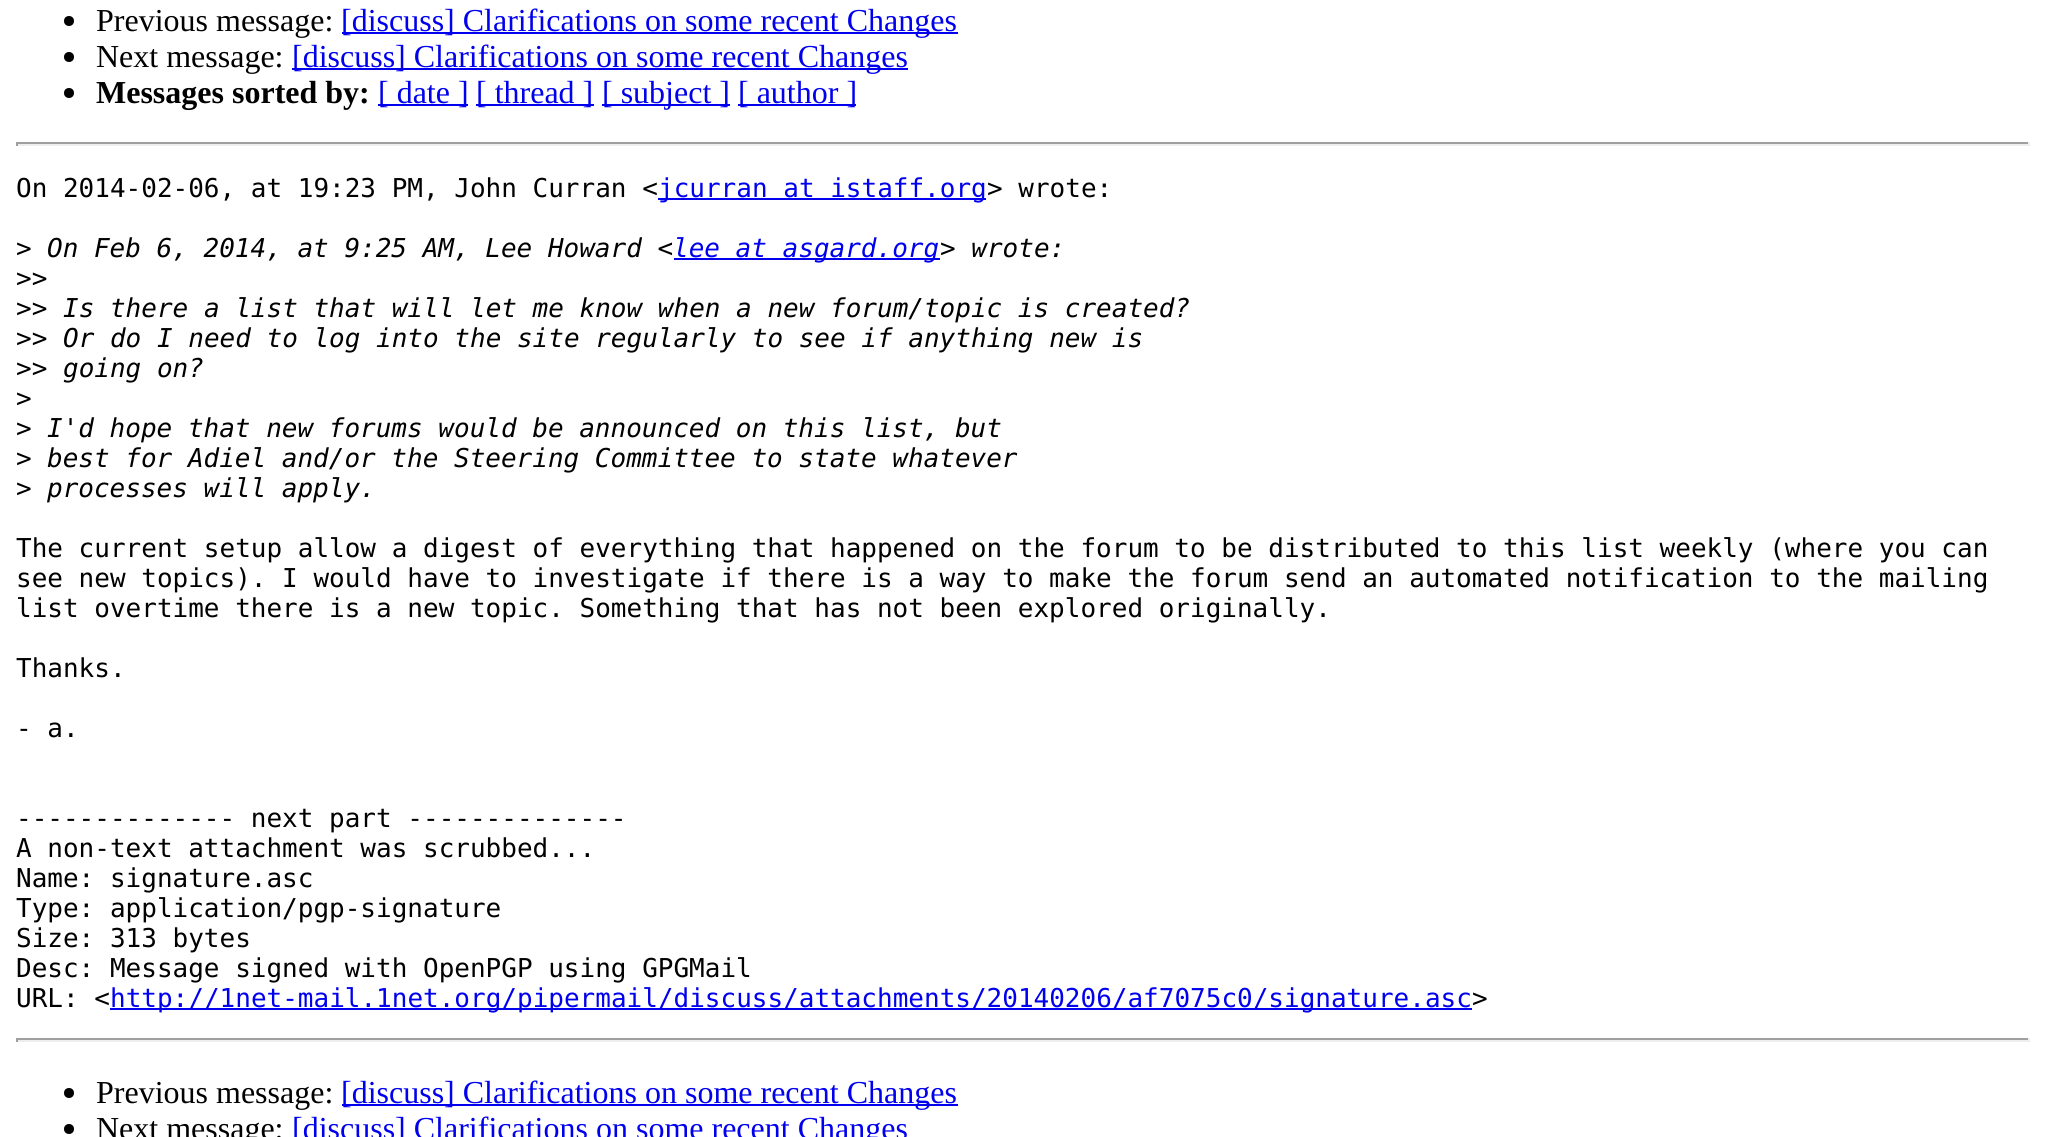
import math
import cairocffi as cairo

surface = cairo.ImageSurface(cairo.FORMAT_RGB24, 2046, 1137)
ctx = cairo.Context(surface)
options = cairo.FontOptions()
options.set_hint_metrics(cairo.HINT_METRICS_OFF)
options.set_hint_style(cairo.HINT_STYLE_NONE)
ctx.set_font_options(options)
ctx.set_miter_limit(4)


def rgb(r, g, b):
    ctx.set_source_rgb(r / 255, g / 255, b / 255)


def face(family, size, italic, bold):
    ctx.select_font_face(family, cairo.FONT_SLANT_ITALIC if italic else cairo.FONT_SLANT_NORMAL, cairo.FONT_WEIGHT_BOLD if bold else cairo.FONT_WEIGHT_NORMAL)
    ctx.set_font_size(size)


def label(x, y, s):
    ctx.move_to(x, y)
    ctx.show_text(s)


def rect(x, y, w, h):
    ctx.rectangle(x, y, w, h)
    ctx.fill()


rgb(255, 255, 255)
ctx.paint()
rgb(0, 0, 0)
ctx.arc(69, 21, 5, 0, 2 * math.pi)
ctx.fill()
face('Liberation Serif', 32, 0, 0)
label(96, 31, 'Previous message:')
rgb(0, 0, 238)
rect(342, 32, 616, 2)
label(341, 31, '[discuss] Clarifications on some recent Changes')
rgb(0, 0, 0)
ctx.new_path()
ctx.arc(69, 57, 5, 0, 2 * math.pi)
ctx.fill()
label(96, 67, 'Next message:')
rgb(0, 0, 238)
rect(292, 68, 616, 2)
label(292, 67, '[discuss] Clarifications on some recent Changes')
rgb(0, 0, 0)
ctx.new_path()
ctx.arc(69, 93, 5, 0, 2 * math.pi)
ctx.fill()
face('Liberation Serif', 32, 0, 1)
label(96, 103, 'Messages sorted by:')
rgb(0, 0, 238)
rect(378, 104, 90, 2)
face('Liberation Serif', 32, 0, 0)
label(378, 103, '[ date ]')
rect(476, 104, 118, 2)
label(476, 103, '[ thread ]')
rect(602, 104, 128, 2)
label(602, 103, '[ subject ]')
rect(738, 104, 118, 2)
label(738, 103, '[ author ]')
rgb(159, 159, 159)
rect(16, 142, 2014, 2)
rgb(238, 238, 238)
rect(2028, 142, 2, 4)
rect(16, 144, 2014, 2)
rgb(159, 159, 159)
rect(16, 142, 2, 4)
face('DejaVu Sans Mono', 26, 0, 0)
rgb(0, 0, 0)
label(16, 197, 'On 2014-02-06, at 19:23 PM, John Curran <')
rgb(0, 0, 238)
rect(658, 198, 328, 2)
label(658, 197, 'jcurran at istaff.org')
rgb(0, 0, 0)
label(987, 197, '> wrote:')
label(16, 257, '>')
face('DejaVu Sans Mono', 26, 1, 0)
label(47, 257, 'On Feb 6, 2014, at 9:25 AM, Lee Howard <')
rgb(0, 0, 238)
rect(674, 258, 266, 2)
label(673, 257, 'lee at asgard.org')
rgb(0, 0, 0)
label(940, 257, '> wrote:')
face('DejaVu Sans Mono', 26, 0, 0)
label(16, 287, '>>')
label(16, 317, '>>')
face('DejaVu Sans Mono', 26, 1, 0)
label(63, 317, 'Is there a list that will let me know when a new forum/topic is created?')
face('DejaVu Sans Mono', 26, 0, 0)
label(16, 347, '>>')
face('DejaVu Sans Mono', 26, 1, 0)
label(63, 347, 'Or do I need to log into the site regularly to see if anything new is')
face('DejaVu Sans Mono', 26, 0, 0)
label(16, 377, '>>')
face('DejaVu Sans Mono', 26, 1, 0)
label(63, 377, 'going on?')
face('DejaVu Sans Mono', 26, 0, 0)
label(16, 407, '>')
label(16, 437, '>')
face('DejaVu Sans Mono', 26, 1, 0)
label(47, 437, 'I\'d hope that new forums would be announced on this list, but')
face('DejaVu Sans Mono', 26, 0, 0)
label(16, 467, '>')
face('DejaVu Sans Mono', 26, 1, 0)
label(47, 467, 'best for Adiel and/or the Steering Committee to state whatever')
face('DejaVu Sans Mono', 26, 0, 0)
label(16, 497, '>')
face('DejaVu Sans Mono', 26, 1, 0)
label(47, 497, 'processes will apply.')
face('DejaVu Sans Mono', 26, 0, 0)
label(16, 557, 'The current setup allow a digest of everything that happened on the forum to be distributed to this list weekly (where you can')
label(16, 587, 'see new topics). I would have to investigate if there is a way to make the forum send an automated notification to the mailing')
label(16, 617, 'list overtime there is a new topic. Something that has not been explored originally.')
label(16, 677, 'Thanks.')
label(16, 737, '- a.')
label(16, 827, '-------------- next part --------------')
label(16, 857, 'A non-text attachment was scrubbed...')
label(16, 887, 'Name: signature.asc')
label(16, 917, 'Type: application/pgp-signature')
label(16, 947, 'Size: 313 bytes')
label(16, 977, 'Desc: Message signed with OpenPGP using GPGMail')
label(16, 1007, 'URL: <')
rgb(0, 0, 238)
rect(110, 1008, 1362, 2)
label(110, 1007, 'http://1net-mail.1net.org/pipermail/discuss/attachments/20140206/af7075c0/signature.asc')
rgb(0, 0, 0)
label(1472, 1007, '>')
rgb(159, 159, 159)
rect(16, 1038, 2014, 2)
rgb(238, 238, 238)
rect(2028, 1038, 2, 4)
rect(16, 1040, 2014, 2)
rgb(159, 159, 159)
rect(16, 1038, 2, 4)
rgb(0, 0, 0)
ctx.new_path()
ctx.arc(69, 1093, 5, 0, 2 * math.pi)
ctx.fill()
face('Liberation Serif', 32, 0, 0)
label(96, 1103, 'Previous message:')
rgb(0, 0, 238)
rect(342, 1104, 616, 2)
label(341, 1103, '[discuss] Clarifications on some recent Changes')
rgb(0, 0, 0)
ctx.new_path()
ctx.arc(69, 1129, 5, 0, 2 * math.pi)
ctx.fill()
label(96, 1139, 'Next message:')
rgb(0, 0, 238)
label(292, 1139, '[discuss] Clarifications on some recent Changes')
surface.write_to_png('render.png')
